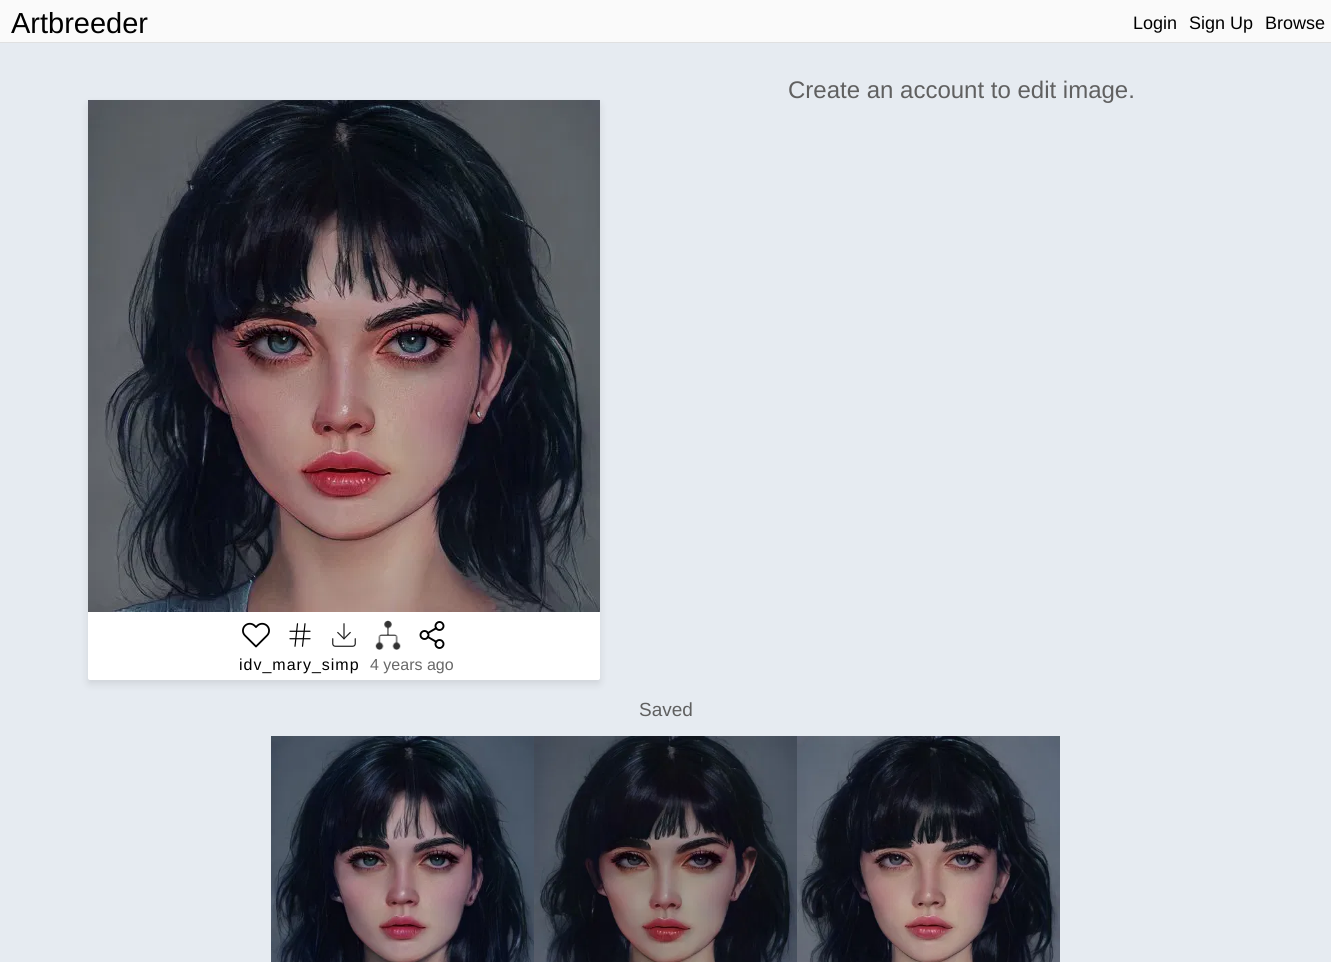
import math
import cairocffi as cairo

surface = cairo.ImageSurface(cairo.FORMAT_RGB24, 1331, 962)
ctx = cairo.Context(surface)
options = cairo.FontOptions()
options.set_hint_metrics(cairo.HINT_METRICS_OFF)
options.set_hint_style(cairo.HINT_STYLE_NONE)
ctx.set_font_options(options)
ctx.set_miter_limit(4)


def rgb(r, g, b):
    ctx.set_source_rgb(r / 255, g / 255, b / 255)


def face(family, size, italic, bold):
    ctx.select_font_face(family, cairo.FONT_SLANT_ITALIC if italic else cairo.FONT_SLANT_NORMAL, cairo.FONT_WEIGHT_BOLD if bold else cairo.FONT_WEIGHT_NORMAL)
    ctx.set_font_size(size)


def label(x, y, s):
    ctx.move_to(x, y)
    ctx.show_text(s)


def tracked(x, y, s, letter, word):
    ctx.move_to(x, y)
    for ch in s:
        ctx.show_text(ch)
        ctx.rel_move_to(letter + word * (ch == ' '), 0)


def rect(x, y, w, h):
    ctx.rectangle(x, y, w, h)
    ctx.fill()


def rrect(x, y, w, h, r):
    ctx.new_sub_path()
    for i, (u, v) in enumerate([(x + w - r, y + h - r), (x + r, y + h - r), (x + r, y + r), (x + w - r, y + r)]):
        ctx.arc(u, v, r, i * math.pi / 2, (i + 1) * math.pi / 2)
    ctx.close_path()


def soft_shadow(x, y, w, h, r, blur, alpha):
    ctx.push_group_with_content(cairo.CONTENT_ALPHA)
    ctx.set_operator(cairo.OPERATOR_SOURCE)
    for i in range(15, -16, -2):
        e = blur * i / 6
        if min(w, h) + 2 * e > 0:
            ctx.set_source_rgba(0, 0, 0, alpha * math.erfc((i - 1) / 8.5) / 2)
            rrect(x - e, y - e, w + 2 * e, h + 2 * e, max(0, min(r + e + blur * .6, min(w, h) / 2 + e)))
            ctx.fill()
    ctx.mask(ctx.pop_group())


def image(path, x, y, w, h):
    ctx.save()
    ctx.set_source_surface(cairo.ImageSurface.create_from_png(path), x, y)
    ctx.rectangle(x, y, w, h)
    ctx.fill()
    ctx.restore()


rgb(230, 235, 241)
ctx.paint()
rgb(250, 250, 250)
rect(0, 0, 1331, 42)
rgb(224, 224, 224)
rect(0, 42, 1331, 1)
face('Liberation Sans', 29, 0, 0)
rgb(0, 0, 0)
label(11, 33, 'Artbreeder')
face('Liberation Sans', 18, 0, 0)
label(1133, 29, 'Login')
label(1189, 29, 'Sign Up')
label(1265, 29, 'Browse')
face('Liberation Sans', 24, 0, 0)
rgb(96, 96, 96)
label(788, 98, 'Create an account to edit image.')
rgb(0, 0, 0)
soft_shadow(88, 104, 512, 580, 2, 4, 0.1)
rgb(255, 255, 255)
rrect(88, 100, 512, 580, 2)
ctx.fill()
image('image0.png', 88, 100, 512, 512)
image('image1.png', 242, 622, 28, 26)
image('image2.png', 289, 623, 22, 24)
image('image3.png', 332, 623, 24, 24)
image('image4.png', 375, 620, 26, 30)
image('image5.png', 419, 621, 26, 28)
face('Liberation Sans', 16, 0, 0)
rgb(0, 0, 0)
tracked(239, 670, 'idv_mary_simp', 1, 0)
rgb(104, 104, 104)
label(370, 670, '4 years ago')
face('Liberation Sans', 19, 0, 0)
rgb(96, 96, 96)
label(639, 716, 'Saved')
image('image6.png', 271, 736, 263, 226)
image('image7.png', 534, 736, 263, 226)
image('image8.png', 797, 736, 263, 226)
surface.write_to_png('render.png')
